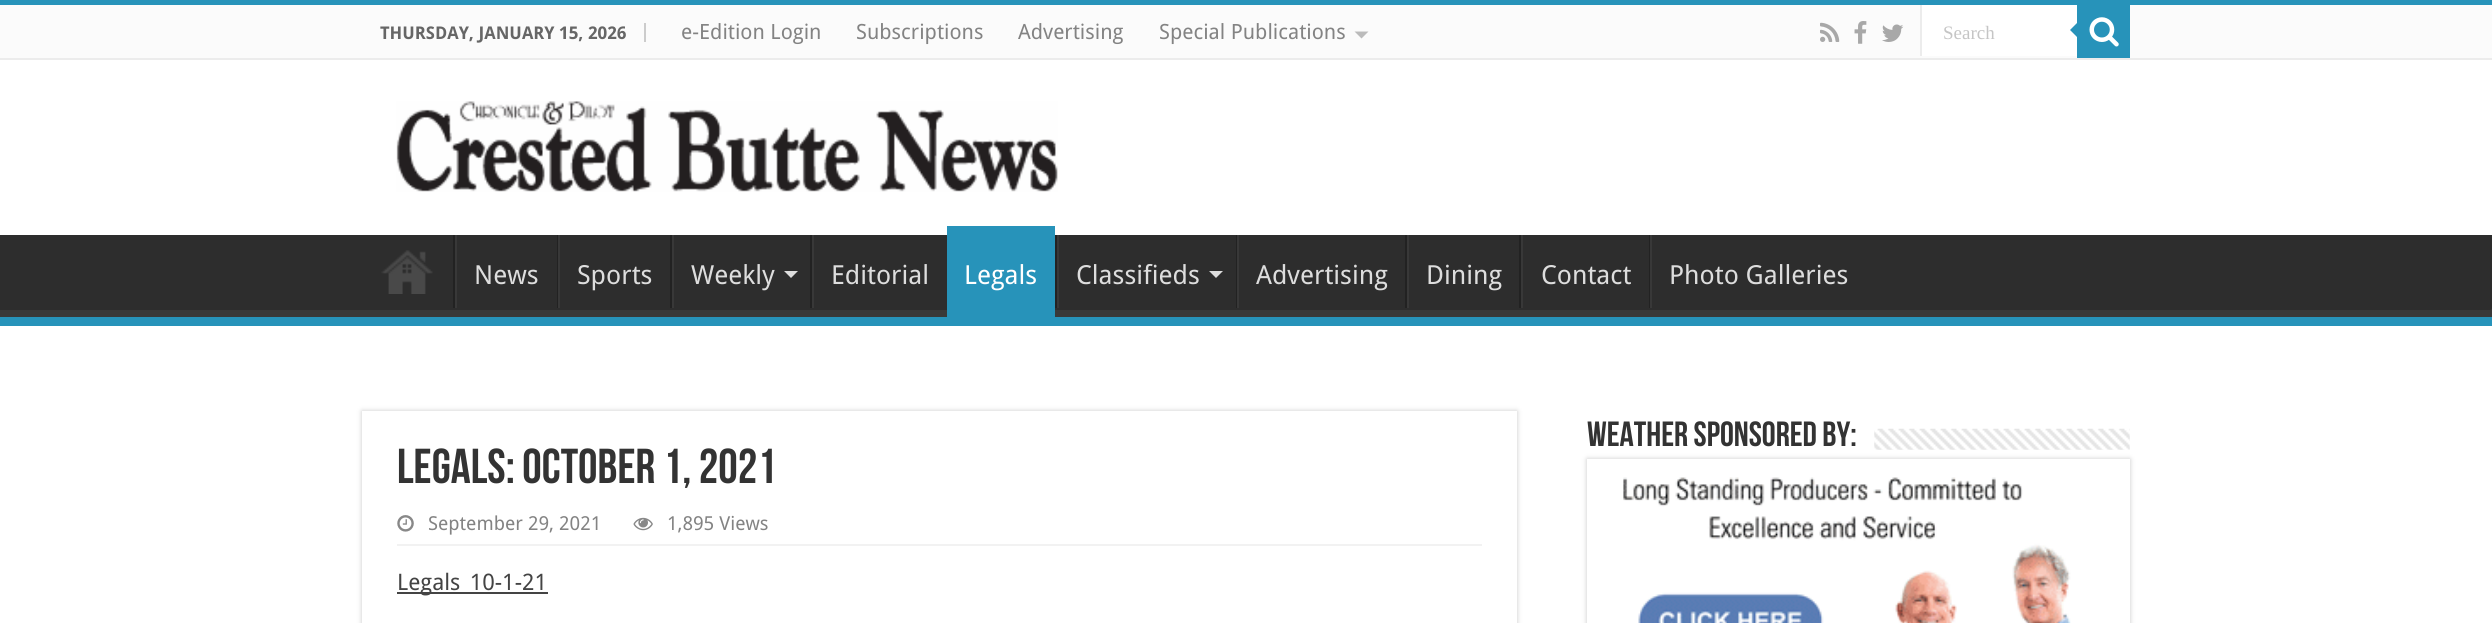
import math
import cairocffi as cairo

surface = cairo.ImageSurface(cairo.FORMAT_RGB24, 2492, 623)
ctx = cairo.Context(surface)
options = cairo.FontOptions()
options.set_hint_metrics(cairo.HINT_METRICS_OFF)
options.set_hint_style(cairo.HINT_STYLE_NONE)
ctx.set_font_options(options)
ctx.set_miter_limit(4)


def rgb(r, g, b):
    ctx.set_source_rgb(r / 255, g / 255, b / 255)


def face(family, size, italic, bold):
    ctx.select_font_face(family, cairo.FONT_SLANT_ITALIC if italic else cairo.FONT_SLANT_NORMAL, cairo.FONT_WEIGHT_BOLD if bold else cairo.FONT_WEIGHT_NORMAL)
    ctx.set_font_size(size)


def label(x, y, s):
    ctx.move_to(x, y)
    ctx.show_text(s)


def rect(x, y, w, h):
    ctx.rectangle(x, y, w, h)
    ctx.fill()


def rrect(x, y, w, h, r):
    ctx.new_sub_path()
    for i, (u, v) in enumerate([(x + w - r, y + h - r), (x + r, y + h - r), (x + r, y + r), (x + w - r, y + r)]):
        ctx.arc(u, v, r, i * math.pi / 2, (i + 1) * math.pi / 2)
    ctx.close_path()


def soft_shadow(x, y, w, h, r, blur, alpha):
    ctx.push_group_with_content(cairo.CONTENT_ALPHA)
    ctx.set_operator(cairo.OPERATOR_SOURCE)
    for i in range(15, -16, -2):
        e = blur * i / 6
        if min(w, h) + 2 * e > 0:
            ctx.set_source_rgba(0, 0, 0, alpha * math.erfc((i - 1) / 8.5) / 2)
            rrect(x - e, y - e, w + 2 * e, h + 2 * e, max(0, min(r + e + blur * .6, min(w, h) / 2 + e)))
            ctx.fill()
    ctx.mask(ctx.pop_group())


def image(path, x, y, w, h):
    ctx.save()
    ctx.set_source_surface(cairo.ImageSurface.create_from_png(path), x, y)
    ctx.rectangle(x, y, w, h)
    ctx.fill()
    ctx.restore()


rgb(255, 255, 255)
ctx.paint()
rgb(39, 147, 186)
rect(0, 0, 2492, 5)
rgb(251, 251, 251)
rect(0, 5, 2492, 53)
rgb(236, 236, 236)
rect(0, 58, 2492, 2)
rgb(204, 204, 204)
rect(644, 23, 2, 19)
face('Droid Sans', 17.5, 0, 1)
rgb(102, 102, 102)
label(380, 39, 'THURSDAY, JANUARY 15, 2026')
face('Droid Sans', 21, 0, 0)
rgb(131, 131, 131)
label(681, 39, 'e-Edition Login')
label(856, 39, 'Subscriptions')
label(1018, 39, 'Advertising')
label(1159, 39, 'Special Publications')
rgb(187, 187, 187)
ctx.new_path()
ctx.move_to(1354.5, 31.5)
ctx.line_to(1368.5, 31.5)
ctx.line_to(1361.5, 38.5)
ctx.close_path()
ctx.fill()
image('image0.png', 1820, 22, 20, 20)
image('image1.png', 1854, 21, 13, 23)
image('image2.png', 1882, 24, 22, 18)
rgb(255, 255, 255)
rect(1922, 5, 155, 51)
rgb(236, 236, 236)
rect(1920, 5, 2, 51)
face('Liberation Serif', 19, 0, 0)
rgb(197, 197, 197)
label(1943, 39, 'Search')
rgb(39, 147, 186)
rect(2077, 5, 53, 53)
image('image3.png', 2089, 17, 30, 30)
ctx.new_path()
ctx.move_to(2077, 23)
ctx.line_to(2077, 37)
ctx.line_to(2070, 30)
ctx.close_path()
ctx.fill()
image('image4.png', 396, 101, 662, 91)
rgb(45, 45, 45)
rect(0, 235, 2492, 75)
ctx.save()
ctx.rectangle(0, 235, 2492, 82)
ctx.clip()
rgb(57, 57, 57)
ctx.set_fill_rule(cairo.FILL_RULE_EVEN_ODD)
ctx.new_path()
ctx.move_to(-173, 61)
ctx.line_to(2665, 61)
ctx.line_to(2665, 490)
ctx.line_to(-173, 490)
ctx.close_path()
ctx.move_to(-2, 224)
ctx.line_to(2490, 224)
ctx.curve_to(2491, 224, 2492, 225, 2492, 226)
ctx.line_to(2492, 308)
ctx.curve_to(2492, 309, 2491, 310, 2490, 310)
ctx.line_to(-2, 310)
ctx.curve_to(-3, 310, -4, 309, -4, 308)
ctx.line_to(-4, 226)
ctx.curve_to(-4, 225, -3, 224, -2, 224)
ctx.close_path()
ctx.fill()
ctx.restore()
rgb(39, 147, 186)
rect(0, 317, 2492, 9)
image('image5.png', 381, 250, 52, 44)
rgb(34, 34, 34)
rect(453, 235, 2, 73)
rgb(56, 56, 56)
rect(455, 235, 2, 73)
face('Droid Sans', 26.25, 0, 0)
rgb(221, 221, 221)
label(474, 284, 'News')
rgb(34, 34, 34)
rect(557, 235, 1, 73)
rgb(56, 56, 56)
rect(558, 235, 2, 73)
rgb(221, 221, 221)
label(577, 284, 'Sports')
rgb(34, 34, 34)
rect(670, 235, 2, 73)
rgb(56, 56, 56)
rect(672, 235, 2, 73)
rgb(221, 221, 221)
label(691, 284, 'Weekly')
ctx.new_path()
ctx.move_to(784, 271)
ctx.line_to(798, 271)
ctx.line_to(791, 278)
ctx.close_path()
ctx.fill()
rgb(34, 34, 34)
rect(810, 235, 2, 73)
rgb(56, 56, 56)
rect(812, 235, 2, 73)
rgb(221, 221, 221)
label(831, 284, 'Editorial')
rgb(39, 147, 186)
rect(947, 226, 108, 91)
rgb(255, 255, 255)
label(964, 284, 'Legals')
rgb(34, 34, 34)
rect(1055, 235, 2, 73)
rgb(56, 56, 56)
rect(1057, 235, 2, 73)
rgb(221, 221, 221)
label(1076, 284, 'Classifieds')
ctx.new_path()
ctx.move_to(1209, 271)
ctx.line_to(1223, 271)
ctx.line_to(1216, 278)
ctx.close_path()
ctx.fill()
rgb(34, 34, 34)
rect(1236, 235, 1, 73)
rgb(56, 56, 56)
rect(1237, 235, 2, 73)
rgb(221, 221, 221)
label(1256, 284, 'Advertising')
rgb(34, 34, 34)
rect(1405, 235, 2, 73)
rgb(56, 56, 56)
rect(1407, 235, 2, 73)
rgb(221, 221, 221)
label(1426, 284, 'Dining')
rgb(34, 34, 34)
rect(1519, 235, 2, 73)
rgb(56, 56, 56)
rect(1521, 235, 2, 73)
rgb(221, 221, 221)
label(1541, 284, 'Contact')
rgb(34, 34, 34)
rect(1649, 235, 1, 73)
rgb(56, 56, 56)
rect(1650, 235, 2, 73)
rgb(221, 221, 221)
label(1669, 284, 'Photo Galleries')
face('Bebas Neue', 35, 0, 1)
rgb(51, 51, 51)
label(1587, 446, 'Weather sponsored by:')
image('image6.png', 1874, 428, 256, 22)
rgb(202, 202, 202)
soft_shadow(1587, 459, 543, 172, 0, 2.5, 1)
rgb(255, 255, 255)
rect(1587, 459, 543, 164)
image('image7.png', 1623, 477, 448, 146)
rgb(202, 202, 202)
soft_shadow(362, 411, 1155, 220, 0, 2.5, 1)
rgb(255, 255, 255)
rect(362, 411, 1155, 212)
face('Bebas Neue', 49, 0, 1)
rgb(51, 51, 51)
label(397, 483, 'Legals: October 1, 2021')
rgb(242, 242, 242)
rect(397, 544, 1085, 2)
image('image8.png', 397, 515, 17, 17)
face('Droid Sans', 19.25, 0, 0)
rgb(131, 131, 131)
label(428, 530, 'September 29, 2021')
image('image9.png', 633, 517, 20, 14)
label(667, 530, '1,895 Views')
rgb(68, 68, 68)
rect(397, 592, 151, 2)
face('Droid Sans', 22.75, 0, 0)
label(397, 590, 'Legals_10-1-21')
surface.write_to_png('render.png')
